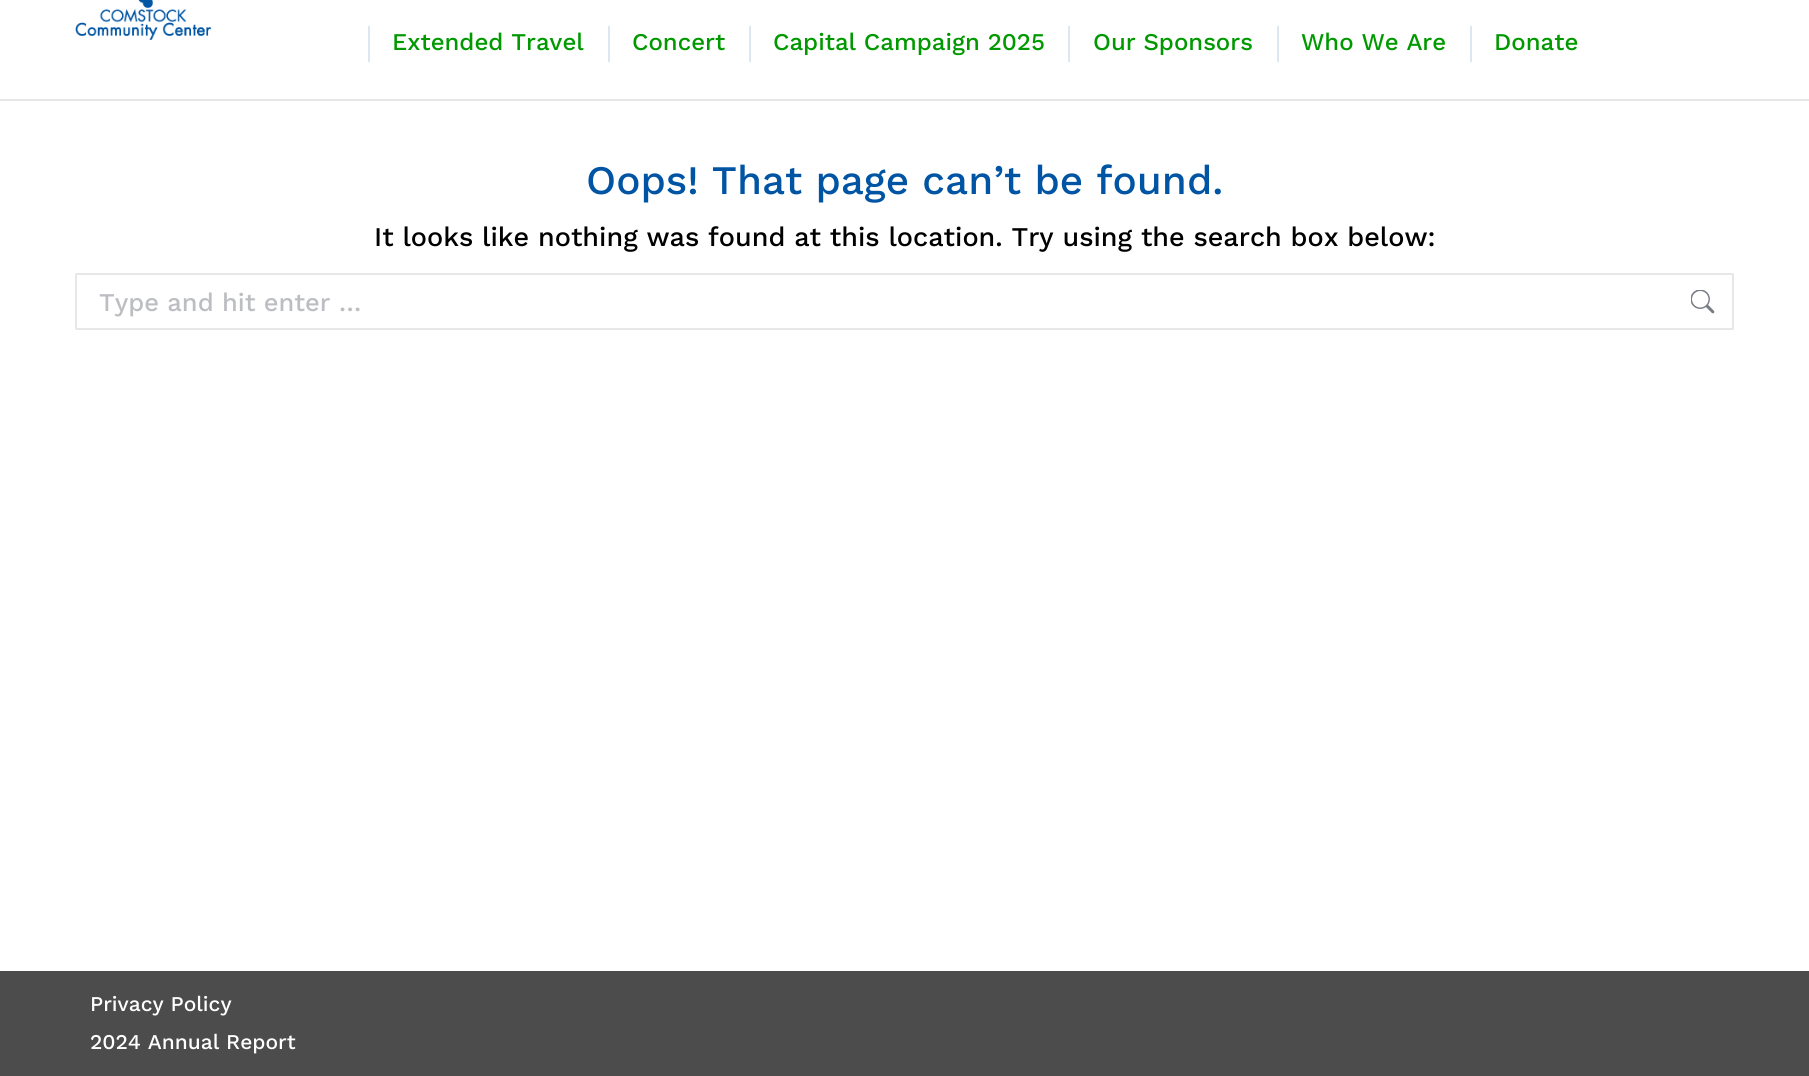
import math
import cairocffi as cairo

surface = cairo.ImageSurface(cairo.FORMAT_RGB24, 1809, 1076)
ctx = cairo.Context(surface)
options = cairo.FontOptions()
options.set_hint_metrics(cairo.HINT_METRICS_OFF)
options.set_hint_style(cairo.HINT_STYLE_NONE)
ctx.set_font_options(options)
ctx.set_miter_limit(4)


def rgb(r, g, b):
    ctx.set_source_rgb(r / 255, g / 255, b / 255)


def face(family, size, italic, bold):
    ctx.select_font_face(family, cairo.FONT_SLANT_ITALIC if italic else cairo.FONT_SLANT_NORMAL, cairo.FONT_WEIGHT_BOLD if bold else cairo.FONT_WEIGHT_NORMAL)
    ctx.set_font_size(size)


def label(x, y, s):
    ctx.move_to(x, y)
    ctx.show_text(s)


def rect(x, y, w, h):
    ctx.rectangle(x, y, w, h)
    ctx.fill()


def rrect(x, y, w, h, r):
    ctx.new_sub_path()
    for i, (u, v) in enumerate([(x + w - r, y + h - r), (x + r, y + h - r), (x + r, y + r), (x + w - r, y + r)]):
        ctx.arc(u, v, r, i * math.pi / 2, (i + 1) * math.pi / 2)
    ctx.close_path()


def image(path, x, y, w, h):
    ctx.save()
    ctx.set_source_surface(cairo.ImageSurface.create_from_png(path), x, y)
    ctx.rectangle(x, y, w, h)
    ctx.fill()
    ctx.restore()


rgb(255, 255, 255)
ctx.paint()
rgb(230, 231, 233)
rect(0, 99, 1809, 2)
image('image0.png', 75, 0, 137, 40)
rgb(219, 231, 242)
rect(368, 26, 2, 36)
face('Work Sans Medium', 24, 0, 0)
rgb(0, 153, 0)
label(392, 50, 'Extended Travel')
rgb(219, 231, 242)
rect(608, 26, 2, 36)
rgb(0, 153, 0)
label(632, 50, 'Concert')
rgb(219, 231, 242)
rect(749, 26, 2, 36)
rgb(0, 153, 0)
label(773, 50, 'Capital Campaign 2025')
rgb(219, 231, 242)
rect(1068, 26, 2, 36)
rgb(0, 153, 0)
label(1093, 50, 'Our Sponsors')
rgb(219, 231, 242)
rect(1277, 26, 2, 36)
rgb(0, 153, 0)
label(1301, 50, 'Who We Are')
rgb(219, 231, 242)
rect(1470, 26, 2, 36)
rgb(0, 153, 0)
label(1494, 50, 'Donate')
face('Work Sans Medium', 40.5, 0, 0)
rgb(0, 84, 164)
label(586, 194, 'Oops! That page can’t be found.')
face('Work Sans Medium', 27, 0, 0)
rgb(0, 0, 0)
label(374, 246, 'It looks like nothing was found at this location. Try using the search box below:')
rrect(76, 274, 1657, 55, 0.5)
rgb(230, 231, 233)
ctx.stroke()
face('Work Sans Medium', 25.5, 0, 0)
rgb(188, 190, 194)
label(99, 311, 'Type and hit enter …')
image('image1.png', 1691, 290, 24, 24)
rgb(76, 76, 76)
rect(0, 971, 1809, 105)
face('Work Sans Medium', 21, 0, 0)
rgb(255, 255, 255)
label(90, 1011, 'Privacy Policy')
label(90, 1049, '2024 Annual Report')
surface.write_to_png('render.png')
